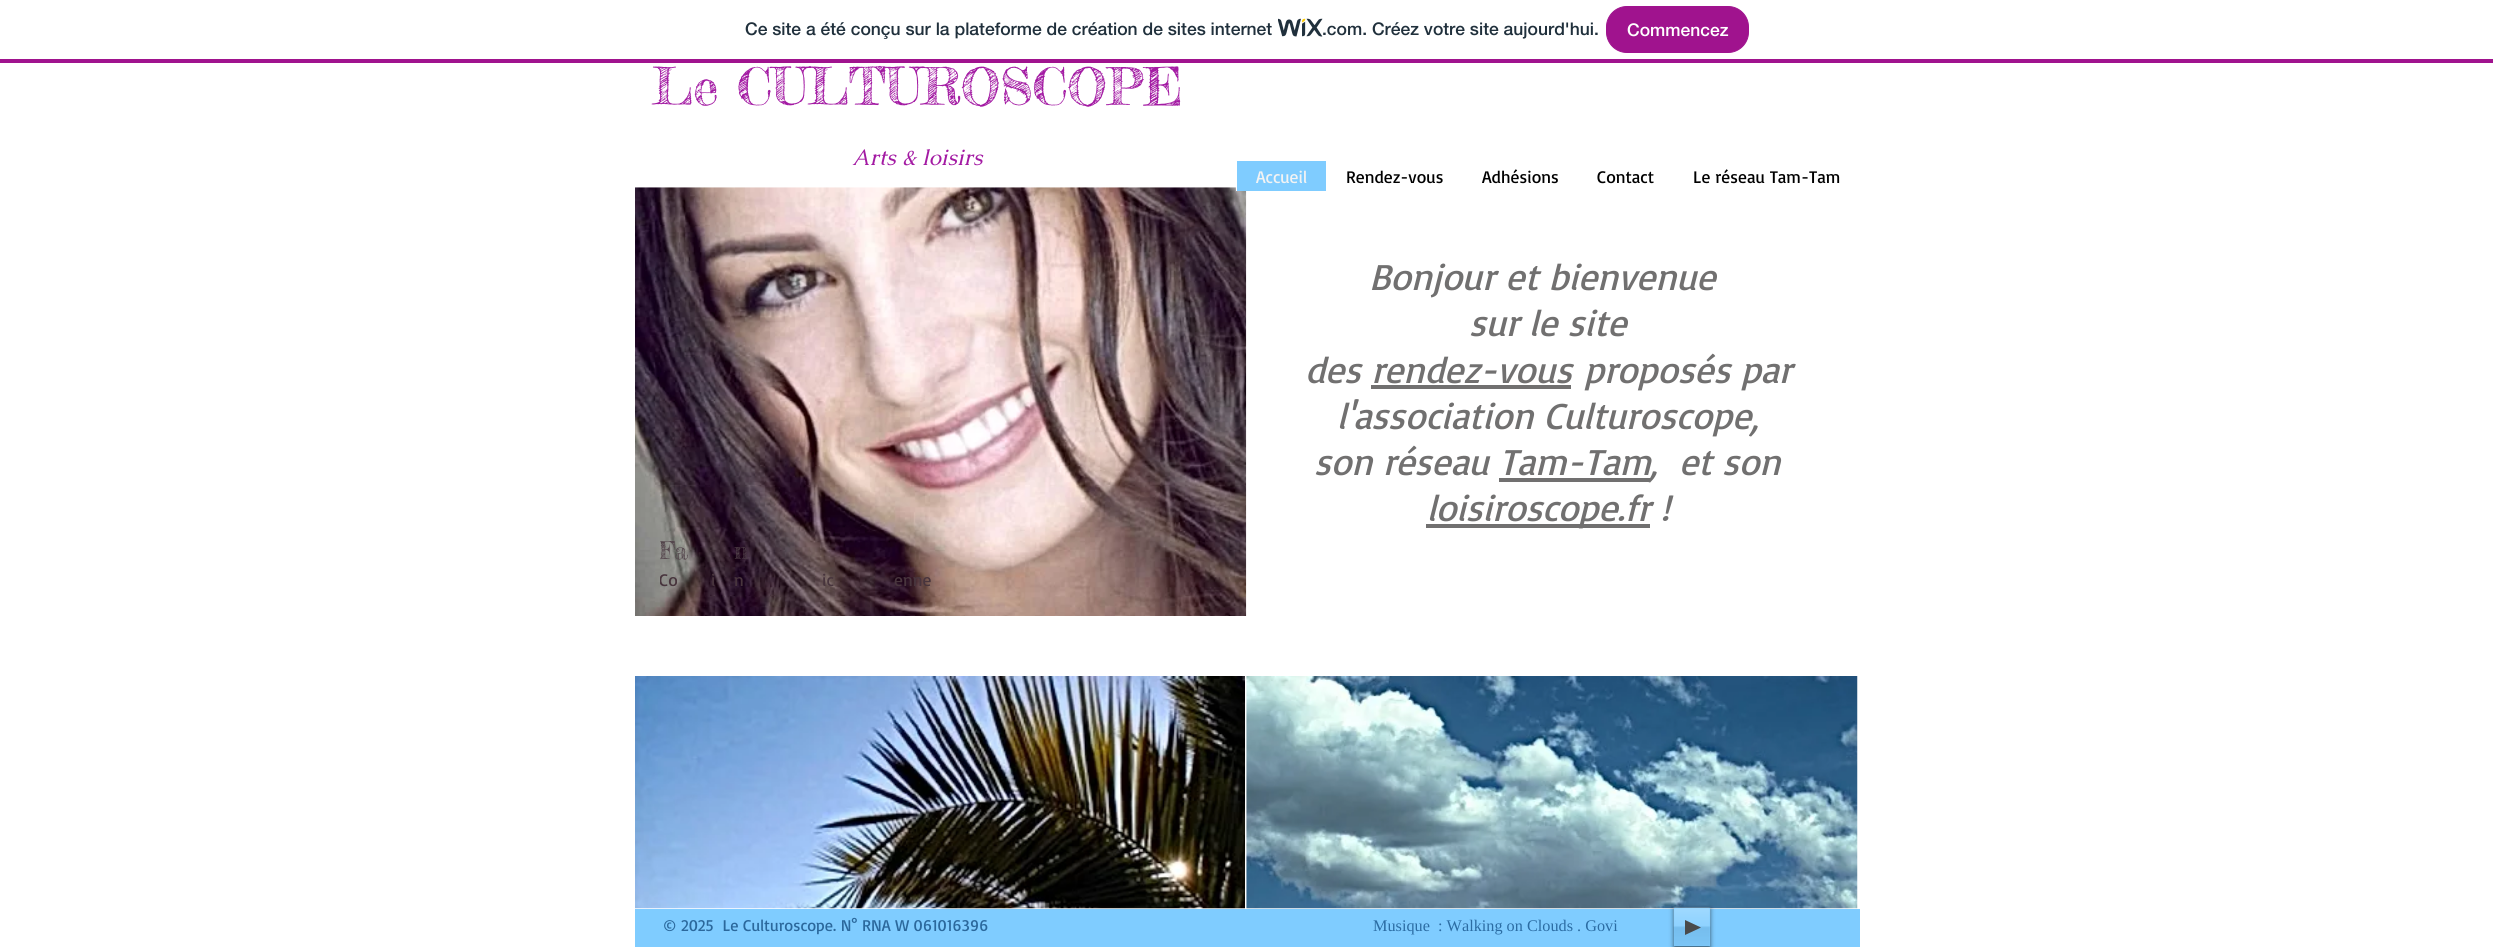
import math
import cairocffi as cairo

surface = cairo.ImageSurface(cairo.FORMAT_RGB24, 2493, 947)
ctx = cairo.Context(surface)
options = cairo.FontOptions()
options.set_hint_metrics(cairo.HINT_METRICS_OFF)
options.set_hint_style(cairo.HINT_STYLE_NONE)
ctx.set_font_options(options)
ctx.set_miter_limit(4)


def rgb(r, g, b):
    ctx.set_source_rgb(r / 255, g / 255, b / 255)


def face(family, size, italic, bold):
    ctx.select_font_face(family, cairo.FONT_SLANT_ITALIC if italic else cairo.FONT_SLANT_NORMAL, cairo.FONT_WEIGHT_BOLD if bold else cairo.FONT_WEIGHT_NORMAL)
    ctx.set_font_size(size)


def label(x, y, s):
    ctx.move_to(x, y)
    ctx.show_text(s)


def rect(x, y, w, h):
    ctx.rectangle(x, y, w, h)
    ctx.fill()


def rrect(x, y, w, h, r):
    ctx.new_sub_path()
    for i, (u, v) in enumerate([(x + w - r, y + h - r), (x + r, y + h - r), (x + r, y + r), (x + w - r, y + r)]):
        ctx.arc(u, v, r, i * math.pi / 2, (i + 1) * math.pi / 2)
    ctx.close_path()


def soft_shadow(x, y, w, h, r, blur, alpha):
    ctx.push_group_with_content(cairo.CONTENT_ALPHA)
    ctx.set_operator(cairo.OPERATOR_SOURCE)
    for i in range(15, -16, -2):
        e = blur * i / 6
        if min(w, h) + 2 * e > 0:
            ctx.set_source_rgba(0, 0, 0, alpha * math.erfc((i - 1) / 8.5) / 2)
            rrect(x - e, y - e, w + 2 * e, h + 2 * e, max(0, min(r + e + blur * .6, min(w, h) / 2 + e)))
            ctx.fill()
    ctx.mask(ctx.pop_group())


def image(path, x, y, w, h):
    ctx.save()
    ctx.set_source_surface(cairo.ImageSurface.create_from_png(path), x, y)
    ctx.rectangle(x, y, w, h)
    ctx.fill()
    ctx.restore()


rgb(255, 255, 255)
ctx.paint()
rgb(160, 19, 142)
rect(0, 59, 2493, 4)
face('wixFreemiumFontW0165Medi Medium', 17.5, 0, 0)
rgb(32, 48, 60)
label(745, 35, 'Ce site a été conçu sur la plateforme de création de sites internet')
image('image0.png', 1278, 18, 45, 19)
label(1322, 35, '.com. Créez votre site aujourd\'hui.')
rgb(160, 19, 142)
rrect(1606.5, 6.5, 142, 46, 20.5)
ctx.fill_preserve()
ctx.set_line_width(1)
ctx.stroke()
rgb(255, 255, 255)
label(1627, 36, 'Commencez')
face('Fredericka the Great', 51.25, 0, 0)
rgb(163, 26, 163)
label(652, 105, 'Le CULTUROSCOPE')
face('Caudex', 22.5, 1, 0)
label(852, 165, 'Arts & loisirs')
image('image1.png', 635, 187, 612, 429)
rgb(127, 204, 255)
rect(1237, 161, 89, 30)
rgb(255, 255, 255)
rect(1236, 187, 1, 4)
face('Basic', 17.5, 0, 0)
rgb(243, 243, 243)
label(1256, 183, 'Accueil')
rgb(0, 0, 0)
label(1346, 183, 'Rendez-vous')
label(1482, 183, 'Adhésions')
label(1597, 183, 'Contact')
label(1693, 183, 'Le réseau Tam-Tam')
face('Basic', 37.5, 1, 0)
rgb(113, 112, 112)
label(1369, 290, 'Bonjour et bienvenue')
label(1469, 336, 'sur le site')
label(1305, 383, 'des rendez-vous')
rect(1371, 385, 200, 4)
label(1584, 383, 'proposés par')
label(1337, 429, 'l\'association Culturoscope,')
label(1314, 475, 'son réseau Tam-Tam')
rect(1499, 478, 151, 4)
label(1650, 475, ',  et son')
rect(1426, 524, 224, 4)
label(1427, 521, 'loisiroscope.fr !')
ctx.save()
ctx.rectangle(660, 534, 271, 32)
ctx.clip()
face('Fredericka the Great', 24, 0, 0)
rgb(82, 67, 74)
label(659, 559, 'Fa')
ctx.restore()
face('Fredericka the Great', 24, 0, 0)
rgb(82, 67, 74)
label(734, 559, 'n')
ctx.save()
ctx.rectangle(660, 566, 271, 25)
ctx.clip()
face('Basic', 17.5, 0, 0)
rgb(72, 53, 61)
label(659, 586, 'Co')
ctx.restore()
face('Basic', 17.5, 0, 0)
rgb(72, 53, 61)
label(711, 586, 'i')
label(734, 586, 'n')
label(822, 586, 'ic')
label(894, 586, 'enne')
image('image2.png', 635, 676, 610, 233)
image('image3.png', 1246, 676, 612, 233)
rgb(127, 204, 255)
rect(635, 909, 1225, 38)
face('Basic', 16.25, 0, 0)
rgb(43, 104, 156)
label(663, 931, '© 2025  Le Culturoscope. N° RNA W 061016396')
face('Liberation Serif', 16.25, 0, 0)
rgb(43, 108, 163)
label(1373, 931, 'Musique  : Walking on Clouds . Govi')
rgb(0, 0, 0)
soft_shadow(1674, 909, 36, 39, 0, 2.5, 0.6)
rgb(127, 204, 255)
rect(1674, 908, 36, 38)
image('image4.png', 1673, 907, 38, 39)
rgb(74, 74, 74)
ctx.new_path()
ctx.move_to(1685, 935)
ctx.line_to(1685, 920)
ctx.line_to(1701, 927.5)
ctx.close_path()
ctx.fill()
surface.write_to_png('render.png')
